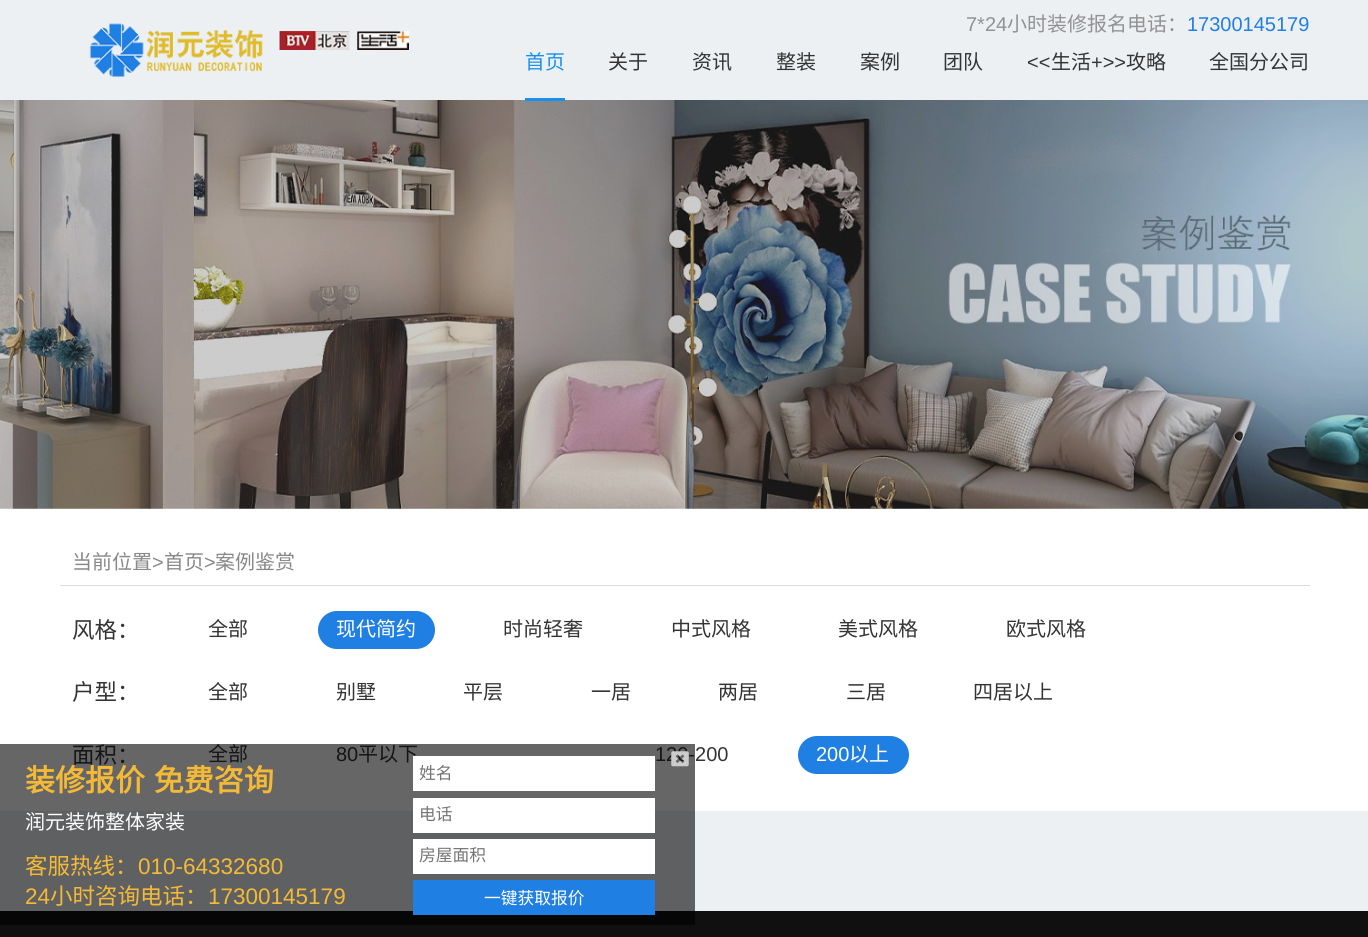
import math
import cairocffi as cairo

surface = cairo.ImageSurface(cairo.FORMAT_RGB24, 1368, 937)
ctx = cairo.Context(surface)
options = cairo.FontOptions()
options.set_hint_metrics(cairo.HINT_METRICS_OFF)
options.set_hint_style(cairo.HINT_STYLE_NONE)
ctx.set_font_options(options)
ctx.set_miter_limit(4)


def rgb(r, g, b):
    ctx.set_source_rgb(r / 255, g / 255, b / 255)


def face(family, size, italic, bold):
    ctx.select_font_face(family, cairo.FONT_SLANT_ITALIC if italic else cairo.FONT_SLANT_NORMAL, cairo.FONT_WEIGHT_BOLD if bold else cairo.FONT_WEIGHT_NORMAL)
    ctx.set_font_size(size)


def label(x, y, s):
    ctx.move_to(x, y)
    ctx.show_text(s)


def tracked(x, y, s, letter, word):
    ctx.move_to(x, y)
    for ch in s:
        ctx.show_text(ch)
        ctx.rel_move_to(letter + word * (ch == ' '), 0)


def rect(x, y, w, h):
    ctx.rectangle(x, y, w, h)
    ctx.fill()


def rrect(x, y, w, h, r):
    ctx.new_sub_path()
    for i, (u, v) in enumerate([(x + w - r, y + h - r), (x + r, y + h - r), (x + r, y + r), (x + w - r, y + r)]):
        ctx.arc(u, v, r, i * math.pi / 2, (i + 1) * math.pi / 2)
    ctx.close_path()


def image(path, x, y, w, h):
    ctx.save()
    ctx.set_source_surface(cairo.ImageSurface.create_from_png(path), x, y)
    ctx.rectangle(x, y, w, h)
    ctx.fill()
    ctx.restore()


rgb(255, 255, 255)
ctx.paint()
rgb(236, 240, 243)
rect(0, 0, 1368, 100)
image('image0.png', 89, 23, 320, 54)
face('Liberation Sans', 20, 0, 0)
rgb(147, 146, 147)
label(966, 31, '7*24')
face('Noto Sans CJK SC', 20, 0, 0)
label(1007, 31, '小时装修报名电话：')
face('Liberation Sans', 20, 0, 0)
rgb(32, 127, 227)
label(1187, 31, '17300145179')
image('image1.png', 0, 100, 1368, 409)
rgb(24, 144, 237)
rect(525, 98, 40, 3)
face('Noto Sans CJK SC', 20, 0, 0)
label(525, 69, '首页')
rgb(52, 52, 52)
label(608, 69, '关于')
label(692, 69, '资讯')
label(776, 69, '整装')
label(860, 69, '案例')
label(943, 69, '团队')
face('Liberation Sans', 20, 0, 0)
label(1027, 69, '<<')
face('Noto Sans CJK SC', 20, 0, 0)
label(1051, 69, '生活')
face('Liberation Sans', 20, 0, 0)
label(1091, 69, '+>>')
face('Noto Sans CJK SC', 20, 0, 0)
label(1126, 69, '攻略')
label(1209, 69, '全国分公司')
rgb(221, 221, 221)
rect(60, 585, 1250, 1)
rgb(136, 136, 136)
label(72, 569, '当前位置')
face('Liberation Sans', 20, 0, 0)
label(152, 569, '>')
face('Noto Sans CJK SC', 20, 0, 0)
label(164, 569, '首页')
face('Liberation Sans', 20, 0, 0)
label(204, 569, '>')
face('Noto Sans CJK SC', 20, 0, 0)
label(215, 569, '案例鉴赏')
face('Noto Sans CJK SC', 22.5, 0, 0)
rgb(52, 52, 52)
label(72, 638, '风格：')
face('Noto Sans CJK SC', 20, 0, 0)
label(208, 636, '全部')
rgb(32, 127, 227)
rrect(318, 611, 117, 38, 19)
ctx.fill()
rgb(255, 255, 255)
label(336, 636, '现代简约')
rgb(52, 52, 52)
label(503, 636, '时尚轻奢')
label(671, 636, '中式风格')
label(838, 636, '美式风格')
label(1006, 636, '欧式风格')
face('Noto Sans CJK SC', 22.5, 0, 0)
label(72, 700, '户型：')
face('Noto Sans CJK SC', 20, 0, 0)
label(208, 699, '全部')
label(336, 699, '别墅')
label(463, 699, '平层')
label(591, 699, '一居')
label(718, 699, '两居')
label(846, 699, '三居')
label(973, 699, '四居以上')
face('Noto Sans CJK SC', 22.5, 0, 0)
label(72, 763, '面积：')
face('Noto Sans CJK SC', 20, 0, 0)
label(208, 761, '全部')
face('Liberation Sans', 20, 0, 0)
label(336, 761, '80')
face('Noto Sans CJK SC', 20, 0, 0)
label(358, 761, '平以下')
face('Liberation Sans', 20, 0, 0)
label(655, 761, '120-200')
rgb(32, 127, 227)
rrect(798, 736, 111, 38, 19)
ctx.fill()
rgb(255, 255, 255)
label(816, 761, '200')
face('Noto Sans CJK SC', 20, 0, 0)
label(849, 761, '以上')
rgb(16, 16, 16)
rect(0, 911, 1368, 26)
rgb(237, 240, 242)
rect(0, 811, 1368, 100)
ctx.set_source_rgba(0, 0, 0, 0.6)
rect(0, 744, 695, 181)
image('image2.png', 671, 751, 18, 16)
face('Noto Sans CJK SC', 30, 0, 1)
rgb(244, 186, 55)
tracked(25, 791, '装修报价 免费咨询', 0, 2)
rgb(255, 255, 255)
rect(413, 756, 242, 35)
face('Noto Sans CJK SC', 16.75, 0, 0)
rgb(117, 117, 117)
label(419, 779, '姓名')
rgb(255, 255, 255)
rect(413, 798, 242, 35)
rgb(117, 117, 117)
label(419, 820, '电话')
rgb(255, 255, 255)
rect(413, 839, 242, 35)
rgb(117, 117, 117)
label(419, 861, '房屋面积')
rgb(32, 127, 227)
rect(413, 880, 242, 35)
rgb(255, 255, 255)
label(484, 904, '一键获取报价')
face('Noto Sans CJK SC', 20, 0, 0)
label(25, 829, '润元装饰整体家装')
face('Noto Sans CJK SC', 22.5, 0, 0)
rgb(244, 186, 55)
label(25, 874, '客服热线：')
face('Liberation Sans', 22.5, 0, 0)
label(138, 874, '010-64332680')
label(25, 904, '24')
face('Noto Sans CJK SC', 22.5, 0, 0)
label(50, 904, '小时咨询电话：')
face('Liberation Sans', 22.5, 0, 0)
label(208, 904, '17300145179')
surface.write_to_png('render.png')
